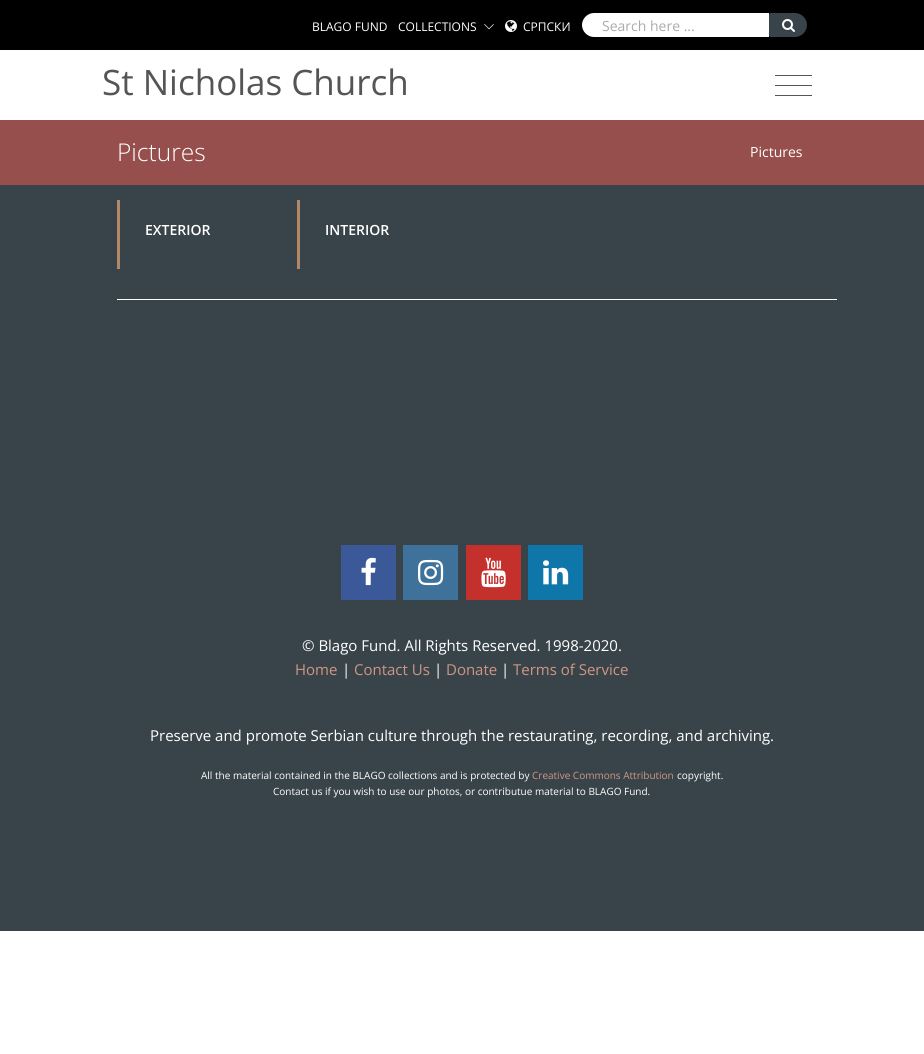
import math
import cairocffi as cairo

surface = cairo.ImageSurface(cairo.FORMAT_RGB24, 924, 1054)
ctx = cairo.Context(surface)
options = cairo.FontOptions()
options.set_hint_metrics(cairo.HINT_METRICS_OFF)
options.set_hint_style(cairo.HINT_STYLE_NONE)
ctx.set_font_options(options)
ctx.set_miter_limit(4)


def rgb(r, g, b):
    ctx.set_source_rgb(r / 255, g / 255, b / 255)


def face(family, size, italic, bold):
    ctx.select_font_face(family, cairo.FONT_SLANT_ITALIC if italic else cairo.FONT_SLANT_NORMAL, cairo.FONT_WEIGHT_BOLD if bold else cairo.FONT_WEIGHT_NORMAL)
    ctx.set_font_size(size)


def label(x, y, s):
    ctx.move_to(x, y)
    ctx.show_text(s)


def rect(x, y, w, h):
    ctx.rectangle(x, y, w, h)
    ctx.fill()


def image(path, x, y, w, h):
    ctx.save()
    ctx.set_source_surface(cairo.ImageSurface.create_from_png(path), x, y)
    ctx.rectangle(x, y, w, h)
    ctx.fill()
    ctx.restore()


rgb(255, 255, 255)
ctx.paint()
rgb(0, 0, 0)
rect(0, 0, 924, 50)
face('Open Sans', 12, 0, 0)
rgb(255, 255, 255)
label(312, 31, 'BLAGO FUND')
label(398, 31, 'COLLECTIONS')
image('image0.png', 484, 24, 10, 6)
image('image1.png', 505, 20, 12, 12)
label(523, 31, 'СРПСКИ')
ctx.new_path()
ctx.move_to(594, 13)
ctx.line_to(769, 13)
ctx.line_to(769, 37)
ctx.line_to(594, 37)
ctx.curve_to(587.5, 37, 582, 31.5, 582, 25)
ctx.curve_to(582, 18.5, 587.5, 13, 594, 13)
ctx.close_path()
ctx.fill()
face('Open Sans', 14, 0, 0)
rgb(170, 170, 170)
label(602, 31, 'Search here ...')
rgb(57, 68, 74)
ctx.new_path()
ctx.move_to(771, 13)
ctx.line_to(795, 13)
ctx.curve_to(801.5, 13, 807, 18.5, 807, 25)
ctx.curve_to(807, 31.5, 801.5, 37, 795, 37)
ctx.line_to(771, 37)
ctx.curve_to(770, 37, 769, 36, 769, 35)
ctx.line_to(769, 15)
ctx.curve_to(769, 14, 770, 13, 771, 13)
ctx.close_path()
ctx.fill()
image('image2.png', 782, 19, 13, 13)
face('Open Sans', 35, 0, 0)
rgb(85, 85, 85)
label(102, 95, 'St Nicholas Church')
rect(775, 75, 37, 1)
rect(775, 85, 37, 1)
rect(775, 95, 37, 1)
rgb(150, 79, 76)
rect(0, 120, 924, 65)
face('Open Sans Light', 24.5, 0, 0)
rgb(255, 255, 255)
label(117, 161, 'Pictures')
face('Open Sans', 14, 0, 0)
label(750, 157, 'Pictures')
rgb(57, 68, 74)
rect(0, 185, 924, 746)
rgb(179, 136, 103)
rect(117, 200, 3, 69)
face('Open Sans SemiBold', 14, 0, 0)
rgb(255, 255, 255)
label(145, 235, 'EXTERIOR')
rgb(179, 136, 103)
rect(297, 200, 3, 69)
rgb(255, 255, 255)
label(325, 235, 'INTERIOR')
rect(117, 299, 720, 1)
rgb(59, 89, 152)
rect(341, 545, 55, 55)
image('image3.png', 361, 557, 15, 29)
rgb(63, 114, 155)
rect(403, 545, 55, 55)
image('image4.png', 418, 559, 26, 27)
rgb(196, 48, 43)
rect(466, 545, 55, 55)
image('image5.png', 481, 557, 25, 31)
rgb(14, 118, 168)
rect(528, 545, 55, 55)
image('image6.png', 543, 560, 26, 25)
face('Open Sans', 15, 0, 0)
rgb(255, 255, 255)
label(302, 651, '© Blago Fund. All Rights Reserved. 1998-2020.')
rgb(208, 150, 131)
label(295, 675, 'Home')
rgb(255, 255, 255)
label(342, 675, '|')
rgb(208, 150, 131)
label(354, 675, 'Contact Us')
rgb(255, 255, 255)
label(434, 675, '|')
rgb(208, 150, 131)
label(446, 675, 'Donate')
rgb(255, 255, 255)
label(501, 675, '|')
rgb(208, 150, 131)
label(513, 675, 'Terms of Service')
rgb(255, 255, 255)
label(150, 741, 'Preserve and promote Serbian culture through the restaurating, recording, and archiving.')
face('Open Sans', 10, 0, 0)
label(201, 779, 'All the material contained in the BLAGO collections and is protected by')
rgb(208, 150, 131)
label(532, 779, 'Creative Commons Attribution')
rgb(255, 255, 255)
label(677, 779, 'copyright.')
label(273, 795, 'Contact us if you wish to use our photos, or contributue material to BLAGO Fund.')
surface.write_to_png('render.png')
